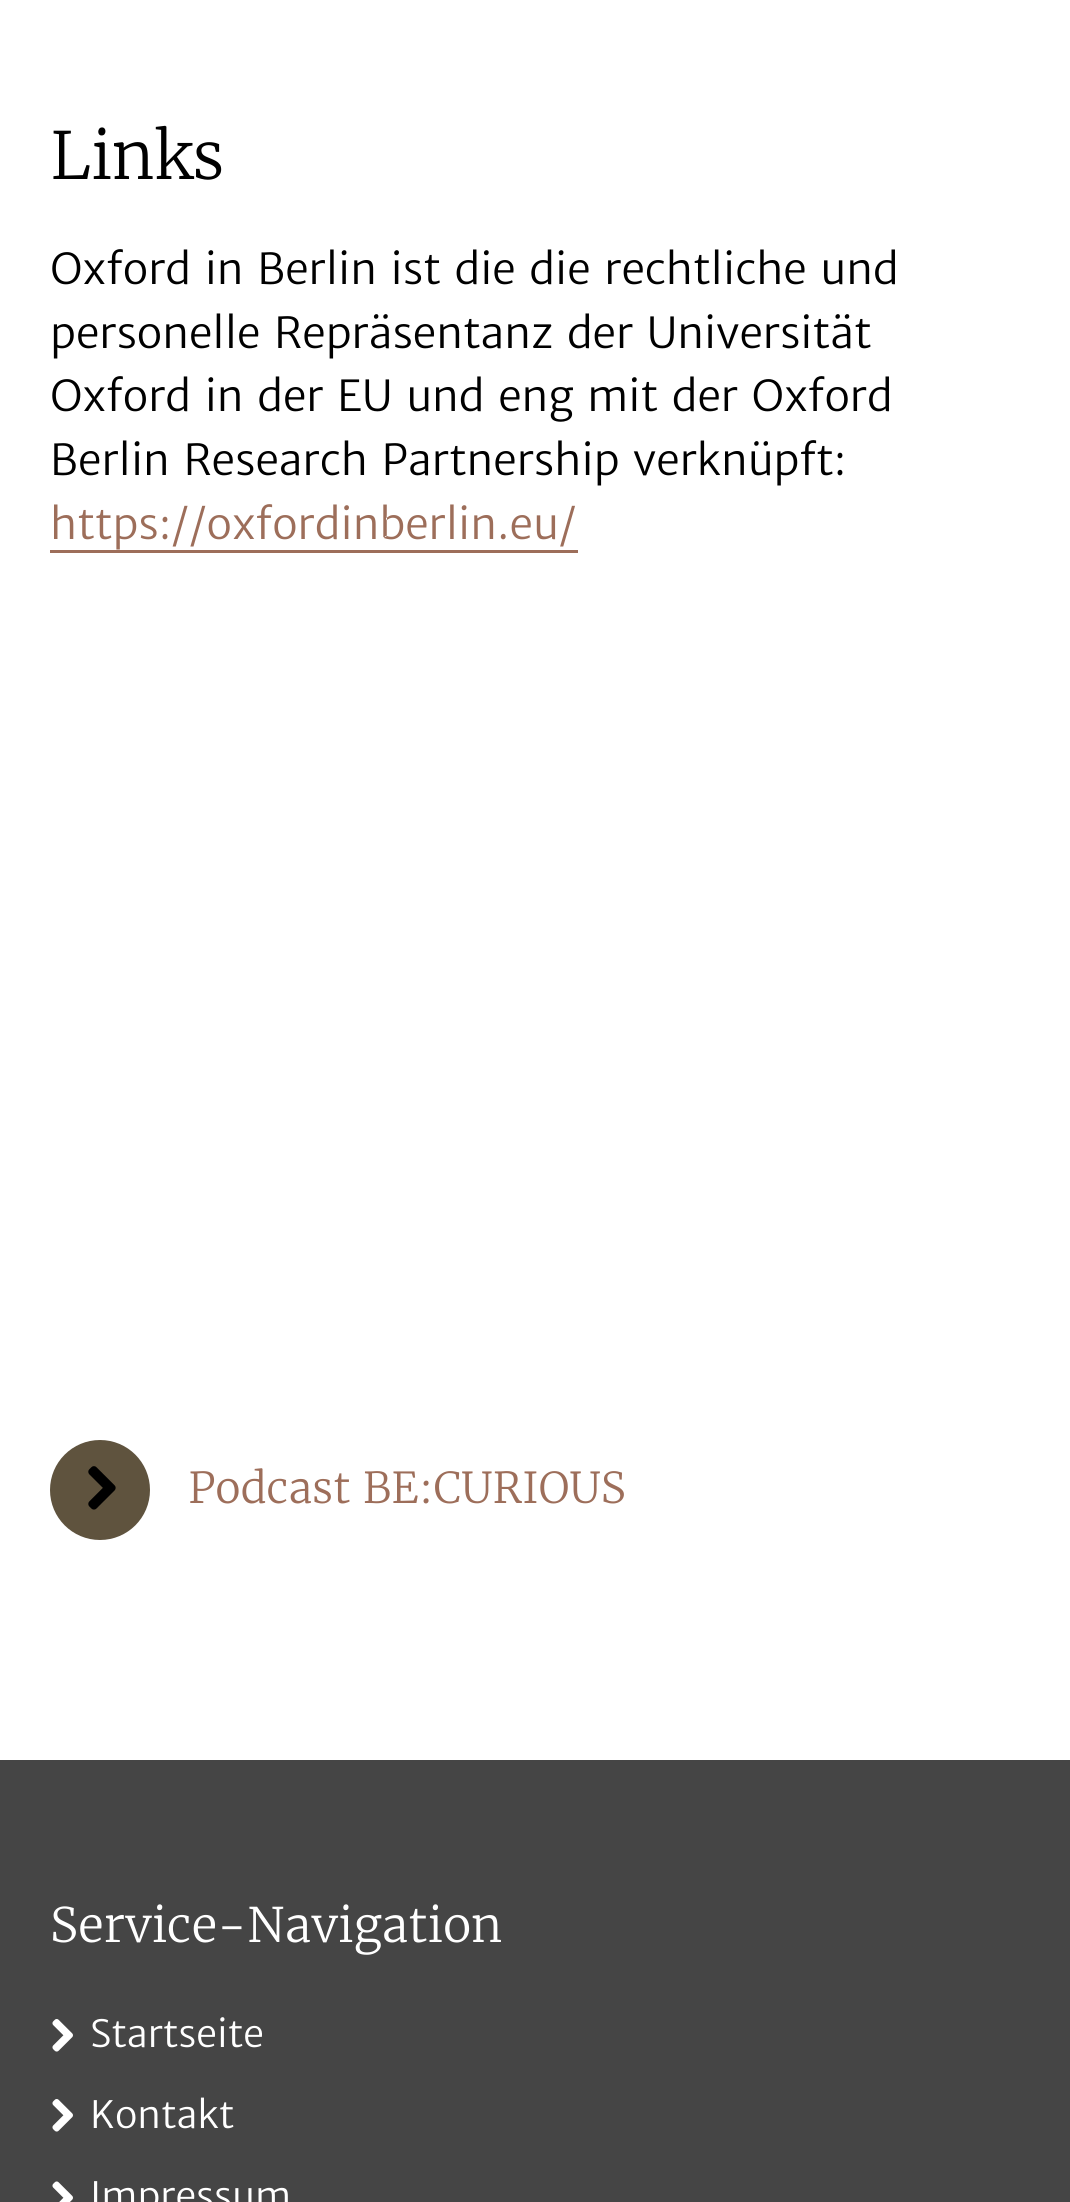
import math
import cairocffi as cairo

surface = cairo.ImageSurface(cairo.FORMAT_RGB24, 1070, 2202)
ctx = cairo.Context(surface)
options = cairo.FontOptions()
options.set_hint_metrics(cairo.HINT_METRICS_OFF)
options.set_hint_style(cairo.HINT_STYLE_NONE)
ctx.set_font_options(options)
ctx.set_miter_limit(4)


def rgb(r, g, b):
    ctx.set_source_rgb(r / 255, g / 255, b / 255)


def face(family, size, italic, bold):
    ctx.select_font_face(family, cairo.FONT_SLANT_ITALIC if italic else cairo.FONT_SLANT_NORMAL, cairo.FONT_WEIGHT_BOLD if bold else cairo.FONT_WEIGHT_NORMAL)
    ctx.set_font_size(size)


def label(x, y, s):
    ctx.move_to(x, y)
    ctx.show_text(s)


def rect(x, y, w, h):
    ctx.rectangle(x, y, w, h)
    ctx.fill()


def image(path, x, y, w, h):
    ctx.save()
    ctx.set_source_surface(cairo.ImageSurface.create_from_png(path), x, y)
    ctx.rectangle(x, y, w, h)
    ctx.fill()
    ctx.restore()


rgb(255, 255, 255)
ctx.paint()
face('Merriweather Light', 65, 0, 0)
rgb(0, 0, 0)
label(50, 179, 'Links')
face('Merriweather Sans Light', 42.5, 0, 0)
label(50, 284, 'Oxford in Berlin ist die die rechtliche und')
label(50, 348, 'personelle Repräsentanz der Universität')
label(50, 411, 'Oxford in der EU und eng mit der Oxford')
label(50, 475, 'Berlin Research Partnership verknüpft:')
rgb(157, 110, 90)
label(50, 539, 'https://oxfordinberlin.eu/')
rect(50, 550, 528, 3)
rgb(95, 83, 62)
ctx.new_path()
ctx.arc(100, 1490, 50, 0, 2 * math.pi)
ctx.fill()
image('image0.png', 88, 1466, 28, 44)
face('Merriweather Light', 42.5, 0, 0)
rgb(157, 110, 90)
label(188, 1503, 'Podcast BE:CURIOUS')
rgb(69, 69, 69)
rect(0, 1760, 1070, 442)
face('Merriweather Light', 47.5, 0, 0)
rgb(255, 255, 255)
label(50, 1942, 'Service-Navigation')
image('image1.png', 52, 2019, 21, 33)
face('Merriweather Sans Light', 37.5, 0, 0)
label(90, 2047, 'Startseite')
image('image1.png', 52, 2099, 21, 33)
label(90, 2128, 'Kontakt')
image('image2.png', 52, 2181, 21, 21)
label(90, 2209, 'Impressum')
surface.write_to_png('render.png')
